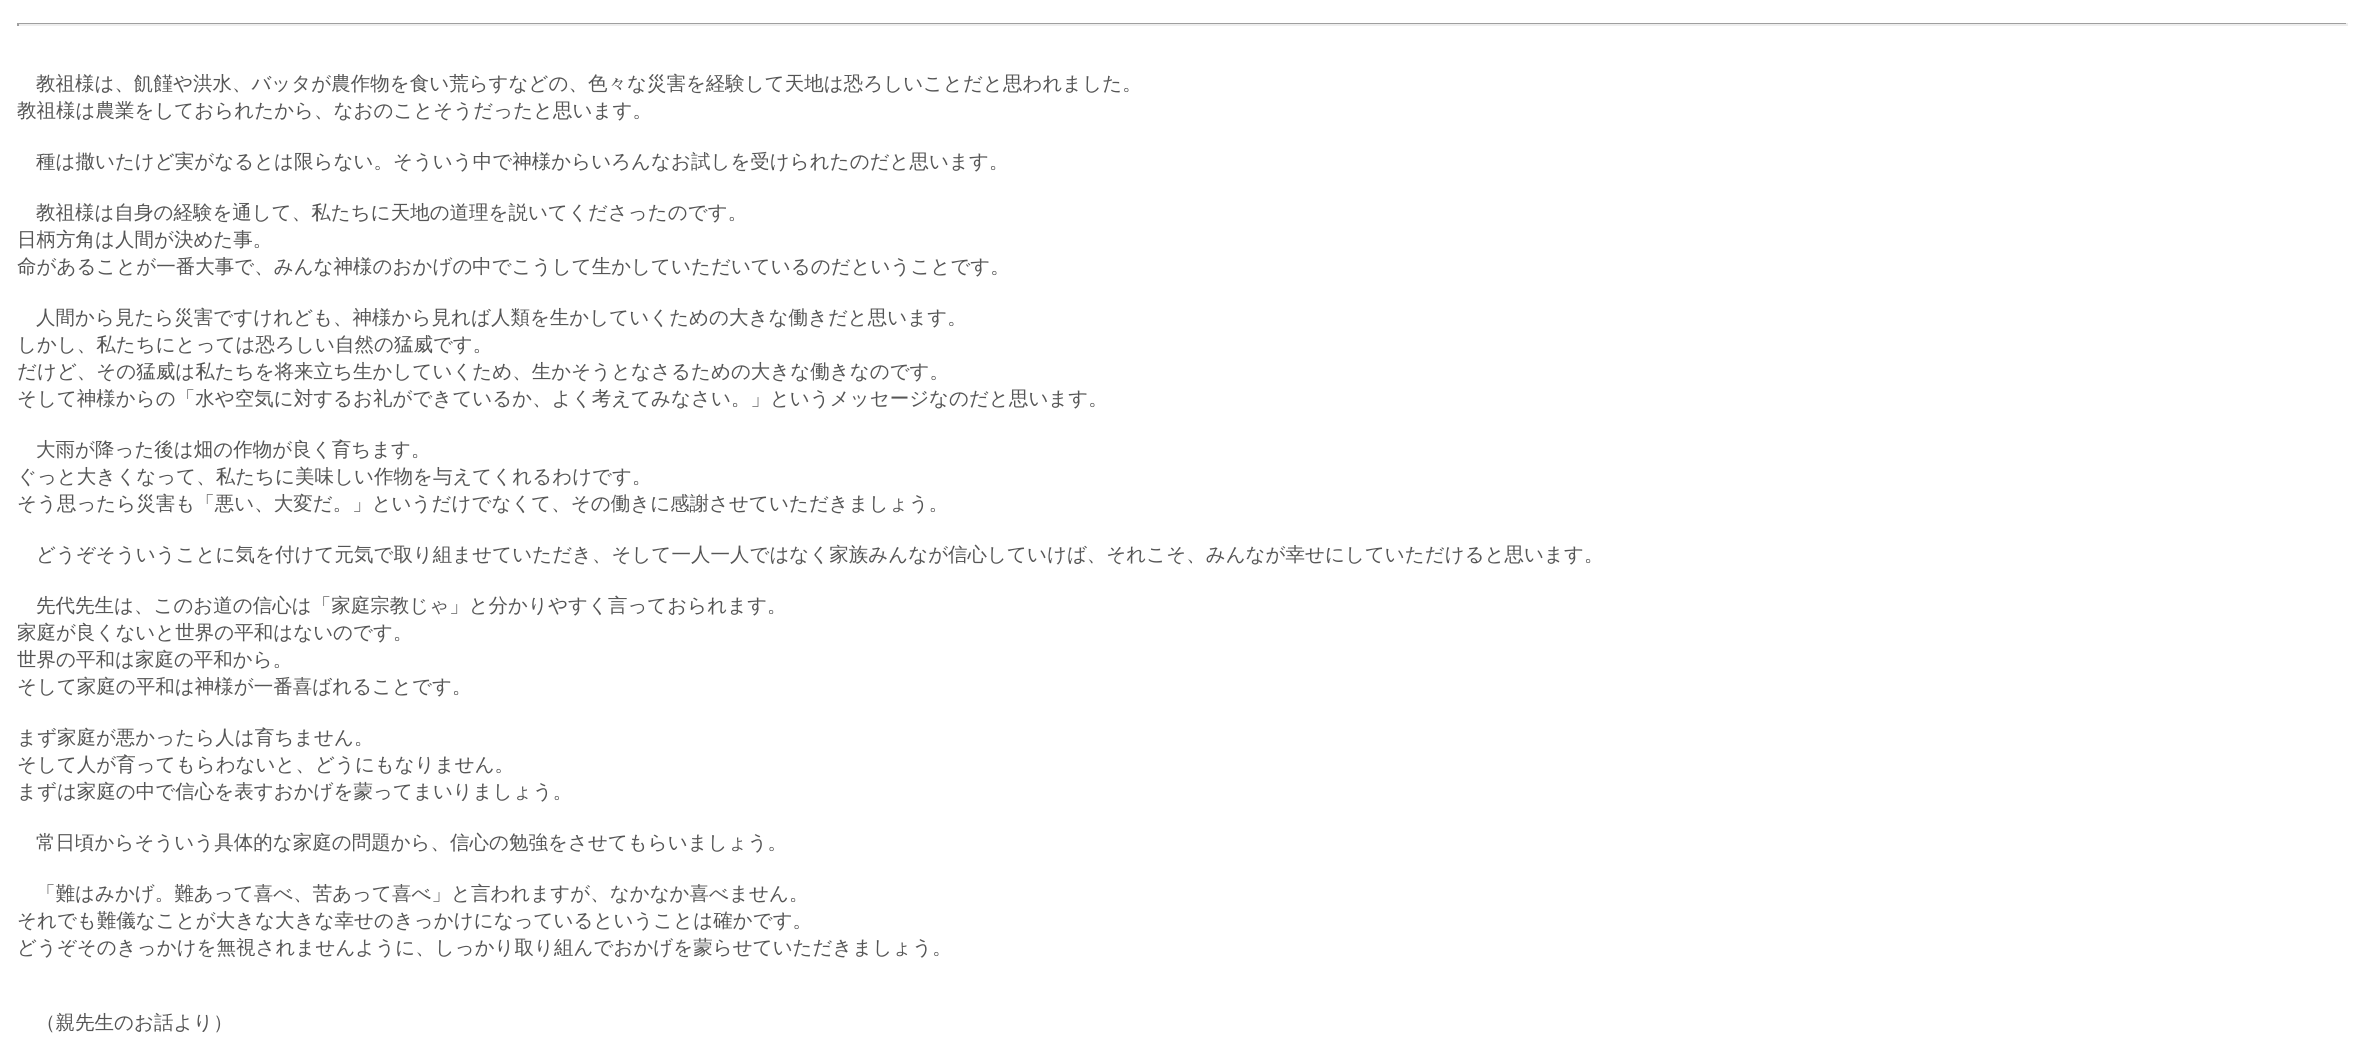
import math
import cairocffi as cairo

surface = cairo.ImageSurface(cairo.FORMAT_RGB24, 2364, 1051)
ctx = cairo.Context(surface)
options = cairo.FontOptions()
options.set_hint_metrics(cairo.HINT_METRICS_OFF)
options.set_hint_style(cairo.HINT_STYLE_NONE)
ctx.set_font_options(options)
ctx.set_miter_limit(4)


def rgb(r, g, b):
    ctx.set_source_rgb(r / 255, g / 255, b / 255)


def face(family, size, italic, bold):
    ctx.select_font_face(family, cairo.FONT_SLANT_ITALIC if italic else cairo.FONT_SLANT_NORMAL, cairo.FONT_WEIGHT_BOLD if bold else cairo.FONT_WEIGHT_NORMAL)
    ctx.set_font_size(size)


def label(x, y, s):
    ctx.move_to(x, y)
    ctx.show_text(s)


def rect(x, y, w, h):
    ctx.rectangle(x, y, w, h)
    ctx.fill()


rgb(255, 255, 255)
ctx.paint()
rgb(159, 159, 159)
rect(17, 23, 2331, 1)
rgb(238, 238, 238)
rect(2346, 23, 2, 3)
rect(17, 24, 2331, 2)
rgb(159, 159, 159)
rect(17, 23, 2, 3)
face('WenQuanYi Zen Hei Medium', 19.5, 0, 0)
rgb(85, 85, 85)
label(36, 90, '教祖様は、飢饉や洪水、バッタが農作物を食い荒らすなどの、色々な災害を経験して天地は恐ろしいことだと思われました。')
label(17, 117, '教祖様は農業をしておられたから、なおのことそうだったと思います。')
label(36, 168, '種は撒いたけど実がなるとは限らない。そういう中で神様からいろんなお試しを受けられたのだと思います。')
label(36, 219, '教祖様は自身の経験を通して、私たちに天地の道理を説いてくださったのです。')
label(17, 246, '日柄方角は人間が決めた事。')
label(17, 273, '命があることが一番大事で、みんな神様のおかげの中でこうして生かしていただいているのだということです。')
label(36, 324, '人間から見たら災害ですけれども、神様から見れば人類を生かしていくための大きな働きだと思います。')
label(17, 351, 'しかし、私たちにとっては恐ろしい自然の猛威です。')
label(17, 378, 'だけど、その猛威は私たちを将来立ち生かしていくため、生かそうとなさるための大きな働きなのです。')
label(17, 405, 'そして神様からの「水や空気に対するお礼ができているか、よく考えてみなさい。」というメッセージなのだと思います。')
label(36, 456, '大雨が降った後は畑の作物が良く育ちます。')
label(17, 483, 'ぐっと大きくなって、私たちに美味しい作物を与えてくれるわけです。')
label(17, 510, 'そう思ったら災害も「悪い、大変だ。」というだけでなくて、その働きに感謝させていただきましょう。')
label(36, 561, 'どうぞそういうことに気を付けて元気で取り組ませていただき、そして一人一人ではなく家族みんなが信心していけば、それこそ、みんなが幸せにしていただけると思います。')
label(36, 612, '先代先生は、このお道の信心は「家庭宗教じゃ」と分かりやすく言っておられます。')
label(17, 639, '家庭が良くないと世界の平和はないのです。')
label(17, 666, '世界の平和は家庭の平和から。')
label(17, 693, 'そして家庭の平和は神様が一番喜ばれることです。')
label(17, 744, 'まず家庭が悪かったら人は育ちません。')
label(17, 771, 'そして人が育ってもらわないと、どうにもなりません。')
label(17, 798, 'まずは家庭の中で信心を表すおかげを蒙ってまいりましょう。')
label(36, 849, '常日頃からそういう具体的な家庭の問題から、信心の勉強をさせてもらいましょう。')
label(36, 900, '「難はみかげ。難あって喜べ、苦あって喜べ」と言われますが、なかなか喜べません。')
label(17, 927, 'それでも難儀なことが大きな大きな幸せのきっかけになっているということは確かです。')
label(17, 954, 'どうぞそのきっかけを無視されませんように、しっかり取り組んでおかげを蒙らせていただきましょう。')
label(36, 1029, '（親先生のお話より）')
surface.write_to_png('render.png')
